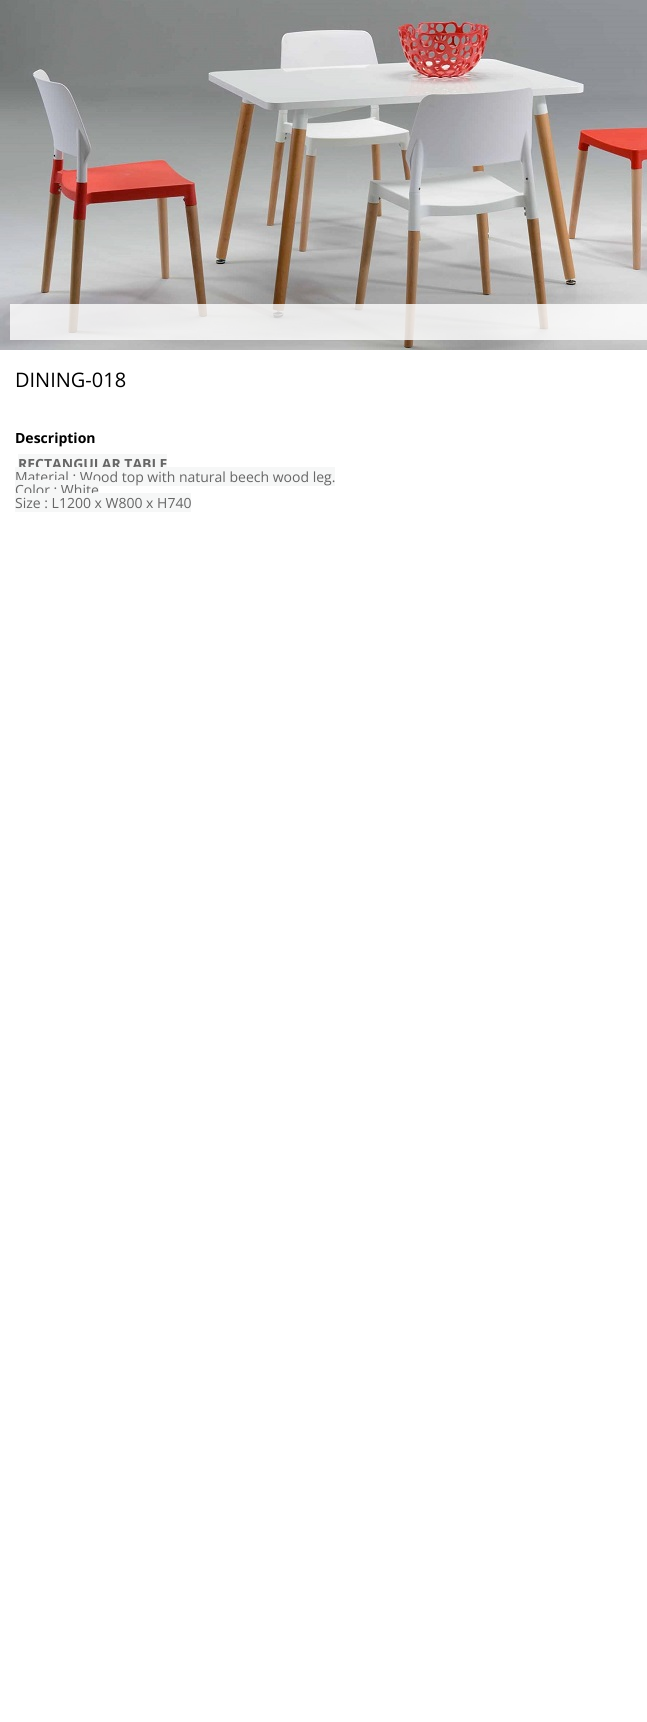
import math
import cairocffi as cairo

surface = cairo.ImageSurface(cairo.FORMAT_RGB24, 647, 1722)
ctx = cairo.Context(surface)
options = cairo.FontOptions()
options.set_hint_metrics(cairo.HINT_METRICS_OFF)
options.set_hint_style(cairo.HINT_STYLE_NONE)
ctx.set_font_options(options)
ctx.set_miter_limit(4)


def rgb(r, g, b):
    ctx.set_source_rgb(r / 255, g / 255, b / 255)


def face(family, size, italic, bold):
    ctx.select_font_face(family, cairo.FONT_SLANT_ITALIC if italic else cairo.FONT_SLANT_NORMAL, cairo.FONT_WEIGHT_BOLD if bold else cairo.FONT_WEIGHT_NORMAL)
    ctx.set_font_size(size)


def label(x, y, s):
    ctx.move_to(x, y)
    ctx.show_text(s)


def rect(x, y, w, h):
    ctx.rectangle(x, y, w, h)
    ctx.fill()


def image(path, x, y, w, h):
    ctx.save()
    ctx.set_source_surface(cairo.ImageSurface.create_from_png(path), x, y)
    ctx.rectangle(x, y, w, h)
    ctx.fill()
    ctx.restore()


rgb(255, 255, 255)
ctx.paint()
image('image0.png', 0, 0, 647, 350)
ctx.set_source_rgba(1, 1, 1, 0.8)
rect(10, 304, 637, 36)
face('Open Sans', 20, 0, 0)
rgb(0, 0, 0)
label(15, 387, 'DINING-018')
face('Open Sans', 14, 0, 1)
label(15, 443, 'Description')
rgb(246, 247, 247)
rect(18, 454, 149, 13)
rgb(102, 102, 102)
label(18, 469, 'RECTANGULAR TABLE')
rgb(246, 247, 247)
rect(15, 467, 320, 19)
face('Open Sans', 14, 0, 0)
rgb(102, 102, 102)
label(15, 482, 'Material : Wood top with natural beech wood leg.')
rgb(246, 247, 247)
rect(15, 480, 84, 13)
rgb(102, 102, 102)
label(15, 495, 'Color : White')
rgb(246, 247, 247)
rect(15, 493, 176, 19)
rgb(102, 102, 102)
label(15, 508, 'Size : L1200 x W800 x H740')
surface.write_to_png('render.png')
